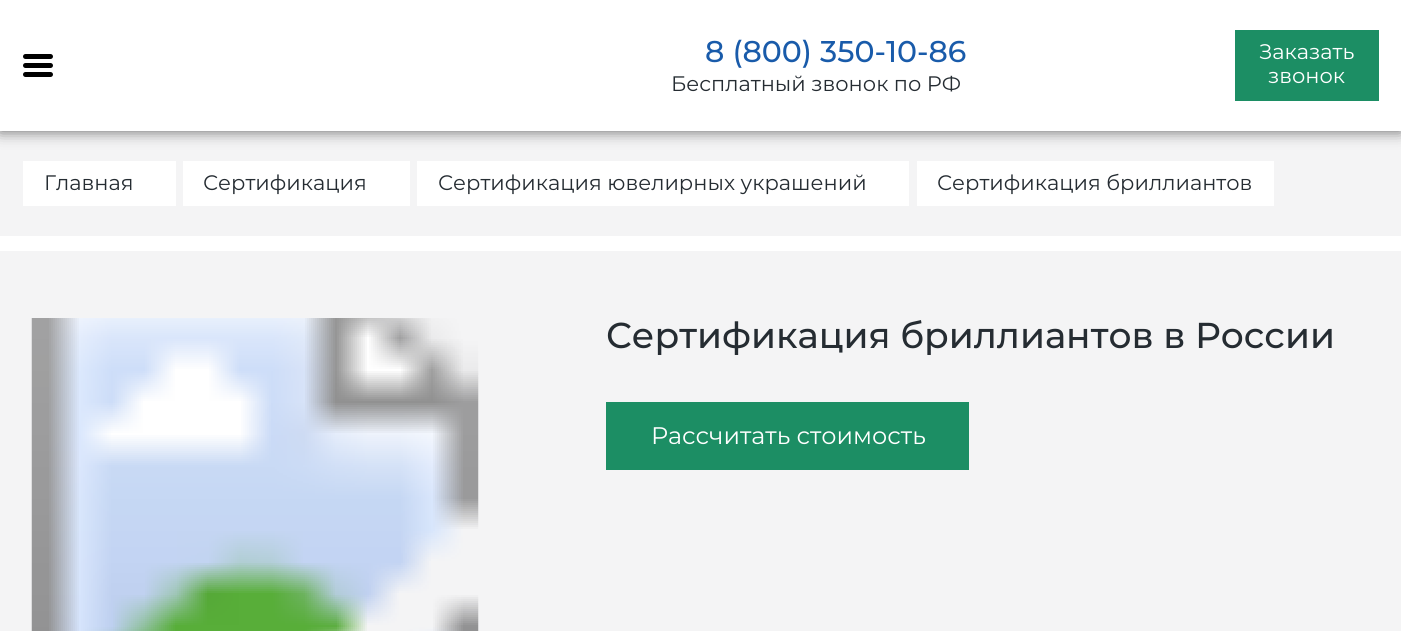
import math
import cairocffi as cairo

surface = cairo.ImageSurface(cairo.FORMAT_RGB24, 1401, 631)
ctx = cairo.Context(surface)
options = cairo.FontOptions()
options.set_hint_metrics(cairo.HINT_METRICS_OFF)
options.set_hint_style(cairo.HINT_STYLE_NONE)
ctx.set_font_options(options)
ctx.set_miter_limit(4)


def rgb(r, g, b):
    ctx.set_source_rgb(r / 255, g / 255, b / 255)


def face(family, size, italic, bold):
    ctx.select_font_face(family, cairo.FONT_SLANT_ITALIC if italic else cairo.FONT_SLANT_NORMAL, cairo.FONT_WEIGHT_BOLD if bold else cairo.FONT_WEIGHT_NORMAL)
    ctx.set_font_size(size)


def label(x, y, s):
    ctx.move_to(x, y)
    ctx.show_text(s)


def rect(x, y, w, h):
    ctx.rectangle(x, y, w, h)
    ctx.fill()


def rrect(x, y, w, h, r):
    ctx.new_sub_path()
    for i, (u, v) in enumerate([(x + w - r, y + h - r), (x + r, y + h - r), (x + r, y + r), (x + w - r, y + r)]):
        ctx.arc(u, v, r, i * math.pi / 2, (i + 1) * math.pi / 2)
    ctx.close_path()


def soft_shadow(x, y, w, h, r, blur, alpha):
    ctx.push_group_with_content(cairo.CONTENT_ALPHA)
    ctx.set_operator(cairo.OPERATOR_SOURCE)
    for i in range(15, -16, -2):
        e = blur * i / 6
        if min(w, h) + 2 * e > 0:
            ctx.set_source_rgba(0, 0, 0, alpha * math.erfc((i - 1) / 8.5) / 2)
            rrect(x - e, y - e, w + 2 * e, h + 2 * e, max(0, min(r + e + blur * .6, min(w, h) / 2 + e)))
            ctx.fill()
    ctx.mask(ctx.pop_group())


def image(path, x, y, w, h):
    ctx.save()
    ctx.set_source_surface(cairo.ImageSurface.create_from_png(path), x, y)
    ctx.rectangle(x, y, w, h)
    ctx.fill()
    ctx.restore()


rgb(244, 244, 245)
ctx.paint()
rgb(0, 0, 0)
soft_shadow(0, 0, 1401, 131, 0, 7.5, 0.6)
rgb(255, 255, 255)
rect(0, 0, 1401, 131)
rgb(0, 0, 0)
rrect(23, 63, 30, 5, 2.5)
ctx.fill()
rrect(23, 54, 30, 5, 2.5)
ctx.fill()
rrect(23, 72, 30, 5, 2.5)
ctx.fill()
face('Montserrat Medium', 30, 0, 0)
rgb(25, 91, 170)
label(705, 62, '8 (800) 350-10-86')
face('Montserrat', 21, 0, 0)
rgb(37, 44, 50)
label(671, 91, 'Бесплатный звонок по РФ')
rgb(28, 142, 100)
rect(1235, 30, 144, 71)
rgb(255, 255, 255)
label(1259, 59, 'Заказать')
label(1268, 83, 'звонок')
rect(23, 161, 153, 45)
rgb(37, 44, 50)
label(44, 190, 'Главная')
rgb(255, 255, 255)
rect(183, 161, 227, 45)
rgb(37, 44, 50)
label(203, 190, 'Сертификация')
rgb(255, 255, 255)
rect(417, 161, 492, 45)
rgb(37, 44, 50)
label(438, 190, 'Сертификация ювелирных украшений')
rgb(255, 255, 255)
rect(917, 161, 357, 45)
rgb(37, 44, 50)
label(937, 190, 'Сертификация бриллиантов')
rgb(255, 255, 255)
rect(0, 236, 1401, 15)
image('image0.png', 31, 318, 448, 313)
face('Montserrat Medium', 36, 0, 0)
rgb(37, 44, 50)
label(606, 348, 'Сертификация бриллиантов в России')
rgb(28, 142, 100)
rect(606, 402, 363, 68)
face('Montserrat', 24, 0, 0)
rgb(255, 255, 255)
label(651, 444, 'Рассчитать стоимость')
surface.write_to_png('render.png')
